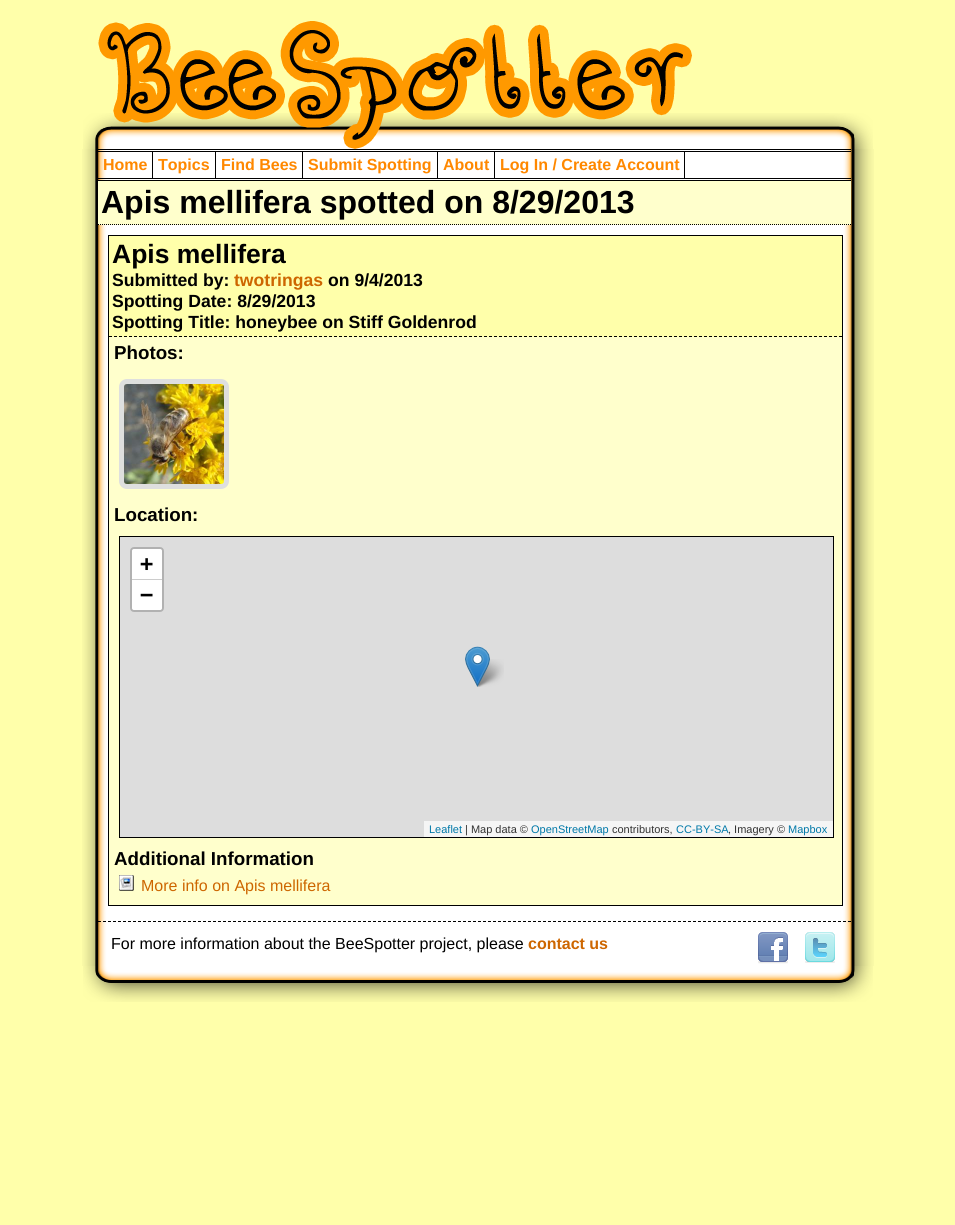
import math
import cairocffi as cairo

surface = cairo.ImageSurface(cairo.FORMAT_RGB24, 955, 1225)
ctx = cairo.Context(surface)
options = cairo.FontOptions()
options.set_hint_metrics(cairo.HINT_METRICS_OFF)
options.set_hint_style(cairo.HINT_STYLE_NONE)
ctx.set_font_options(options)
ctx.set_miter_limit(4)


def rgb(r, g, b):
    ctx.set_source_rgb(r / 255, g / 255, b / 255)


def face(family, size, italic, bold):
    ctx.select_font_face(family, cairo.FONT_SLANT_ITALIC if italic else cairo.FONT_SLANT_NORMAL, cairo.FONT_WEIGHT_BOLD if bold else cairo.FONT_WEIGHT_NORMAL)
    ctx.set_font_size(size)


def label(x, y, s):
    ctx.move_to(x, y)
    ctx.show_text(s)


def rect(x, y, w, h):
    ctx.rectangle(x, y, w, h)
    ctx.fill()


def rrect(x, y, w, h, r):
    ctx.new_sub_path()
    for i, (u, v) in enumerate([(x + w - r, y + h - r), (x + r, y + h - r), (x + r, y + r), (x + w - r, y + r)]):
        ctx.arc(u, v, r, i * math.pi / 2, (i + 1) * math.pi / 2)
    ctx.close_path()


def image(path, x, y, w, h):
    ctx.save()
    ctx.set_source_surface(cairo.ImageSurface.create_from_png(path), x, y)
    ctx.rectangle(x, y, w, h)
    ctx.fill()
    ctx.restore()


rgb(255, 255, 170)
ctx.paint()
image('image0.png', 83, 113, 790, 36)
image('image1.png', 98, 21, 594, 128)
image('image2.png', 82, 149, 792, 817)
rgb(0, 0, 0)
rect(98, 149, 753, 1)
rect(98, 151, 753, 1)
rect(98, 178, 753, 1)
rect(98, 180, 753, 1)
rect(152, 152, 1, 26)
face('Liberation Sans', 16, 0, 1)
rgb(255, 136, 0)
label(103, 170, 'Home')
rgb(0, 0, 0)
rect(215, 152, 1, 26)
rgb(255, 136, 0)
label(158, 170, 'Topics')
rgb(0, 0, 0)
rect(302, 152, 1, 26)
rgb(255, 136, 0)
label(221, 170, 'Find Bees')
rgb(0, 0, 0)
rect(437, 152, 1, 26)
rgb(255, 136, 0)
label(308, 170, 'Submit Spotting')
rgb(0, 0, 0)
rect(494, 152, 1, 26)
rgb(255, 136, 0)
label(443, 170, 'About')
rgb(0, 0, 0)
rect(684, 152, 1, 26)
rgb(255, 136, 0)
label(500, 170, 'Log In / Create Account')
rgb(255, 255, 204)
rect(98, 181, 753, 44)
ctx.new_path()
ctx.move_to(98, 224.5)
ctx.line_to(851, 224.5)
rgb(0, 0, 0)
ctx.set_line_width(1)
ctx.set_dash([1, 1])
ctx.stroke()
face('Liberation Sans', 32, 0, 1)
label(101, 213, 'Apis mellifera spotted on 8/29/2013')
rgb(255, 255, 204)
rect(109, 337, 733, 568)
ctx.rectangle(108.5, 235.5, 734, 670)
rgb(0, 0, 0)
ctx.set_dash([])
ctx.stroke()
rgb(255, 255, 170)
rect(109, 236, 733, 101)
ctx.new_path()
ctx.move_to(109, 336.5)
ctx.line_to(842, 336.5)
rgb(0, 0, 0)
ctx.set_dash([3, 2])
ctx.stroke()
face('Liberation Sans', 26.5, 0, 1)
label(112, 263, 'Apis mellifera')
face('Liberation Sans', 17.6, 0, 1)
label(112, 286, 'Submitted by:')
rgb(205, 102, 0)
label(234, 286, 'twotringas')
rgb(0, 0, 0)
label(328, 286, 'on 9/4/2013')
label(112, 307, 'Spotting Date: 8/29/2013')
label(112, 328, 'Spotting Title: honeybee on Stiff Goldenrod')
face('Liberation Sans', 18.75, 0, 1)
label(114, 359, 'Photos:')
rrect(121.5, 381.5, 105, 105, 5.5)
rgb(222, 223, 222)
ctx.set_line_width(5)
ctx.set_dash([])
ctx.stroke()
image('image3.png', 124, 384, 100, 100)
rgb(0, 0, 0)
label(114, 521, 'Location:')
rgb(221, 221, 221)
ctx.rectangle(119.5, 536.5, 714, 301)
ctx.fill_preserve()
rgb(0, 0, 0)
ctx.set_line_width(1)
ctx.stroke()
rrect(131, 548, 32, 63, 3)
rgb(177, 177, 177)
ctx.set_line_width(2)
ctx.stroke()
rgb(255, 255, 255)
ctx.new_path()
ctx.move_to(134, 549)
ctx.line_to(160, 549)
ctx.curve_to(161, 549, 162, 550, 162, 551)
ctx.line_to(162, 580)
ctx.line_to(132, 580)
ctx.line_to(132, 551)
ctx.curve_to(132, 550, 133, 549, 134, 549)
ctx.close_path()
ctx.fill()
rgb(204, 204, 204)
rect(132, 579, 30, 1)
face('DejaVu Sans Mono', 22, 0, 1)
rgb(0, 0, 0)
label(140, 571, '+')
rgb(255, 255, 255)
ctx.new_path()
ctx.move_to(132, 580)
ctx.line_to(162, 580)
ctx.line_to(162, 608)
ctx.curve_to(162, 609, 161, 610, 160, 610)
ctx.line_to(134, 610)
ctx.curve_to(133, 610, 132, 609, 132, 608)
ctx.close_path()
ctx.fill()
rgb(0, 0, 0)
label(140, 602, '−')
rgb(245, 245, 245)
rect(424, 821, 409, 16)
face('Liberation Sans', 11, 0, 0)
rgb(0, 120, 168)
label(429, 833, 'Leaflet')
rgb(51, 51, 51)
label(465, 833, '| Map data ©')
rgb(0, 120, 168)
label(531, 833, 'OpenStreetMap')
rgb(51, 51, 51)
label(612, 833, 'contributors,')
rgb(0, 120, 168)
label(676, 833, 'CC-BY-SA')
rgb(51, 51, 51)
label(728, 833, ', Imagery ©')
rgb(0, 120, 168)
label(788, 833, 'Mapbox')
image('image5.png', 475, 659, 29, 28)
image('image4.png', 465, 646, 25, 41)
face('Liberation Sans', 18.75, 0, 1)
rgb(0, 0, 0)
label(114, 865, 'Additional Information')
image('image6.png', 119, 875, 15, 16)
face('Liberation Sans', 16, 0, 0)
rgb(205, 102, 0)
label(141, 891, 'More info on Apis mellifera')
ctx.new_path()
ctx.move_to(98, 921.5)
ctx.line_to(851, 921.5)
rgb(0, 0, 0)
ctx.set_line_width(1)
ctx.set_dash([3, 2])
ctx.stroke()
label(111, 949, 'For more information about the BeeSpotter project, please')
face('Liberation Sans', 16, 0, 1)
rgb(205, 102, 0)
label(528, 949, 'contact us')
image('image7.png', 758, 932, 30, 32)
image('image8.png', 805, 932, 30, 31)
image('image9.png', 83, 966, 790, 36)
surface.write_to_png('render.png')
